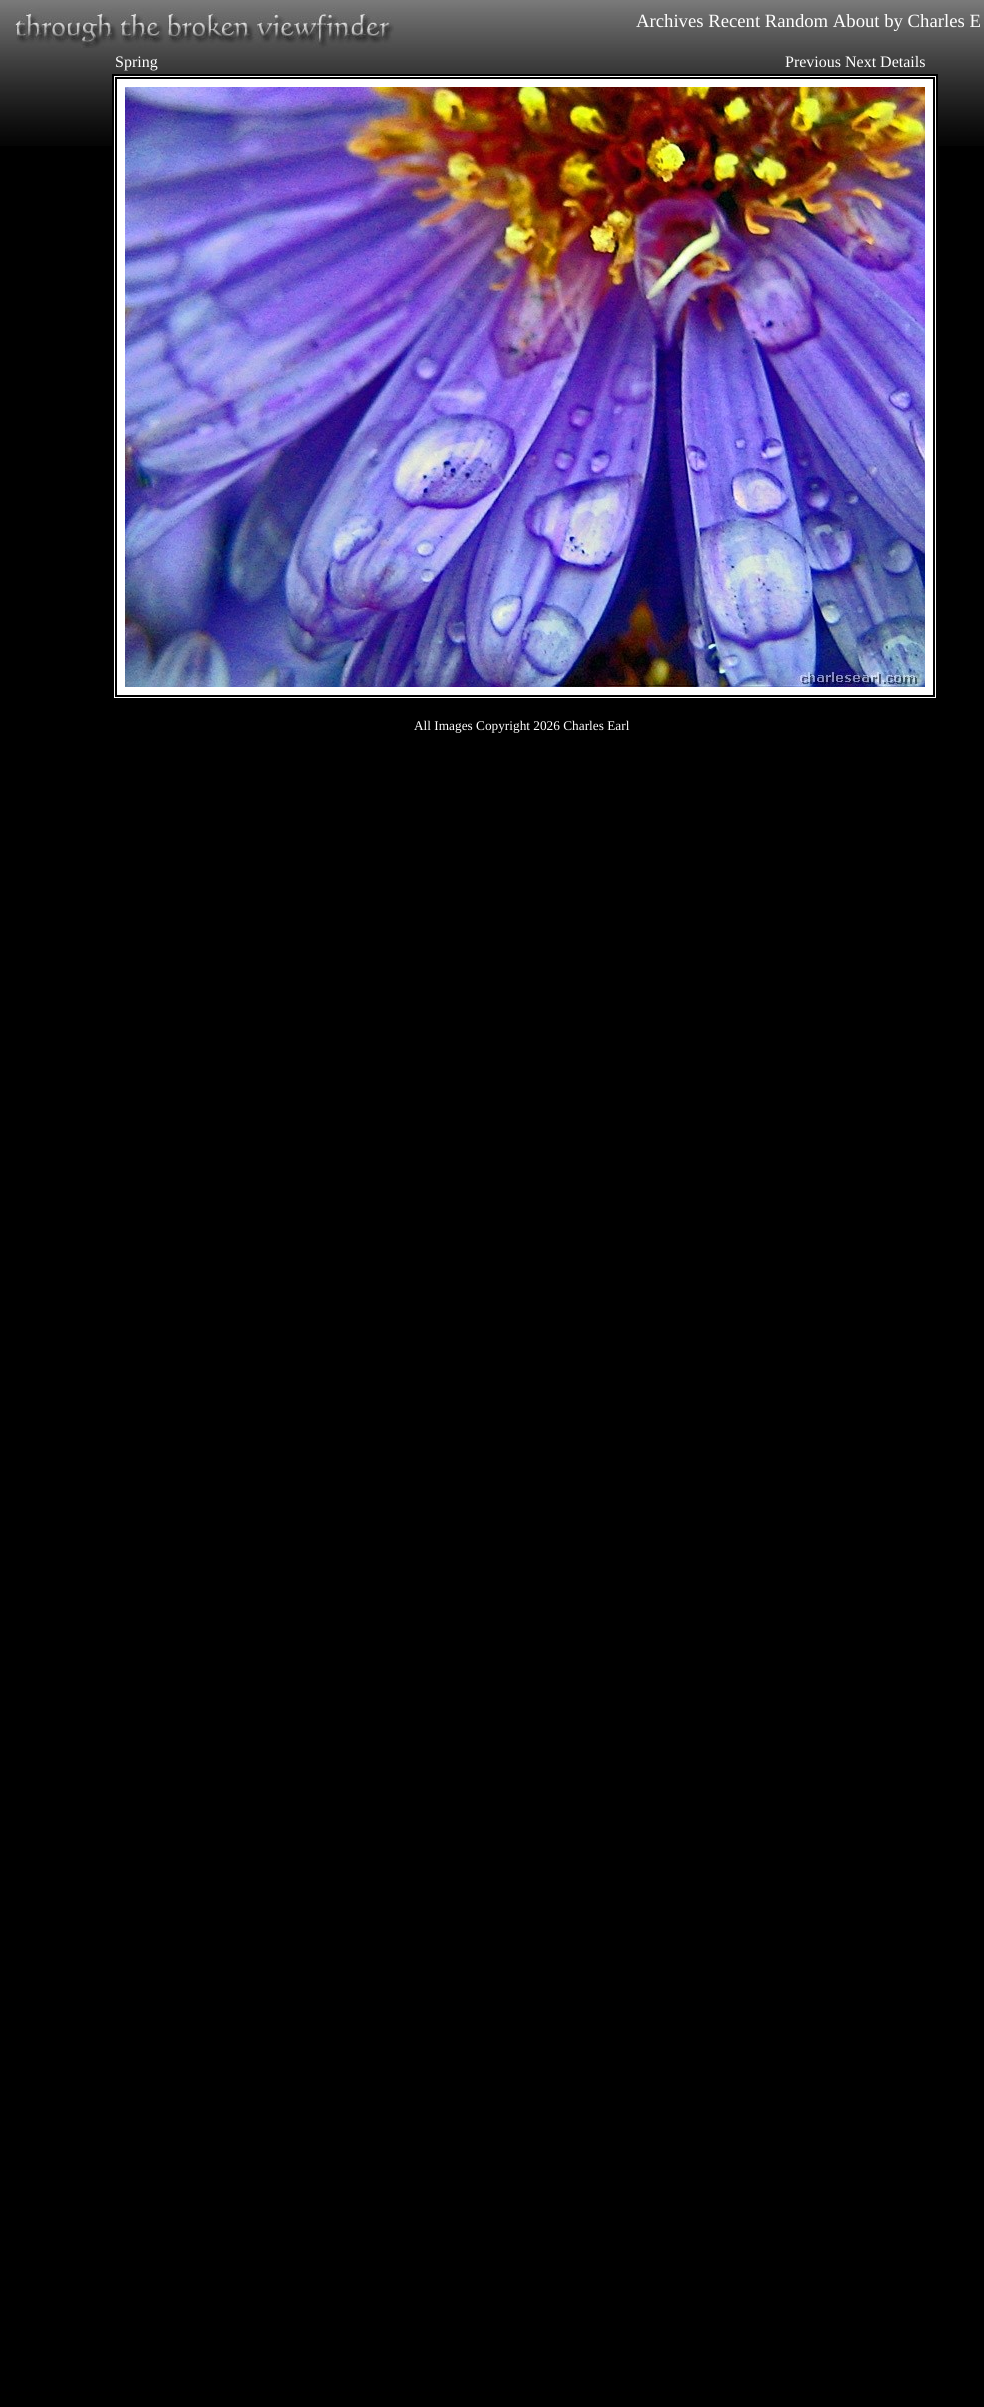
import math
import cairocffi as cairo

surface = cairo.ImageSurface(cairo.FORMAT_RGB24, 984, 2407)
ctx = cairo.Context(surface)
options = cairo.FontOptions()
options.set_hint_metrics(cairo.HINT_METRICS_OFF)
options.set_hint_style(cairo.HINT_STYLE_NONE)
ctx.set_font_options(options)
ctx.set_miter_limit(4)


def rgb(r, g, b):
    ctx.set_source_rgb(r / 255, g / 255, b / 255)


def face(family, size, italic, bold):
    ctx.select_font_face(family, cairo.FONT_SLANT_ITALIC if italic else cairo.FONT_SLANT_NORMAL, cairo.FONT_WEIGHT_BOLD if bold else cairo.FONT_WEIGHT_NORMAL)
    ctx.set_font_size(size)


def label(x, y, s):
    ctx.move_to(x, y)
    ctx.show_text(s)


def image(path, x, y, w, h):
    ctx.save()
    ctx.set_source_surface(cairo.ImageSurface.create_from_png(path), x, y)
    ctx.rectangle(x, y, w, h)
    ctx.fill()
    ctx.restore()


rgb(0, 0, 0)
ctx.paint()
image('image0.png', 0, 0, 984, 146)
image('image1.png', 14, 8, 380, 40)
face('Liberation Serif', 18.7, 0, 0)
rgb(255, 255, 255)
label(636, 27, 'Archives Recent Random About by Charles E')
face('Liberation Serif', 16, 0, 0)
label(115, 67, 'Spring')
label(785, 67, 'Previous Next Details')
ctx.rectangle(113, 75, 824, 624)
ctx.fill_preserve()
rgb(0, 0, 0)
ctx.stroke()
ctx.rectangle(116, 78, 818, 618)
ctx.stroke()
image('image2.png', 125, 87, 800, 600)
face('Liberation Serif', 13.3, 0, 0)
rgb(255, 255, 255)
label(414, 730, 'All Images Copyright 2026 Charles Earl')
surface.write_to_png('render.png')
